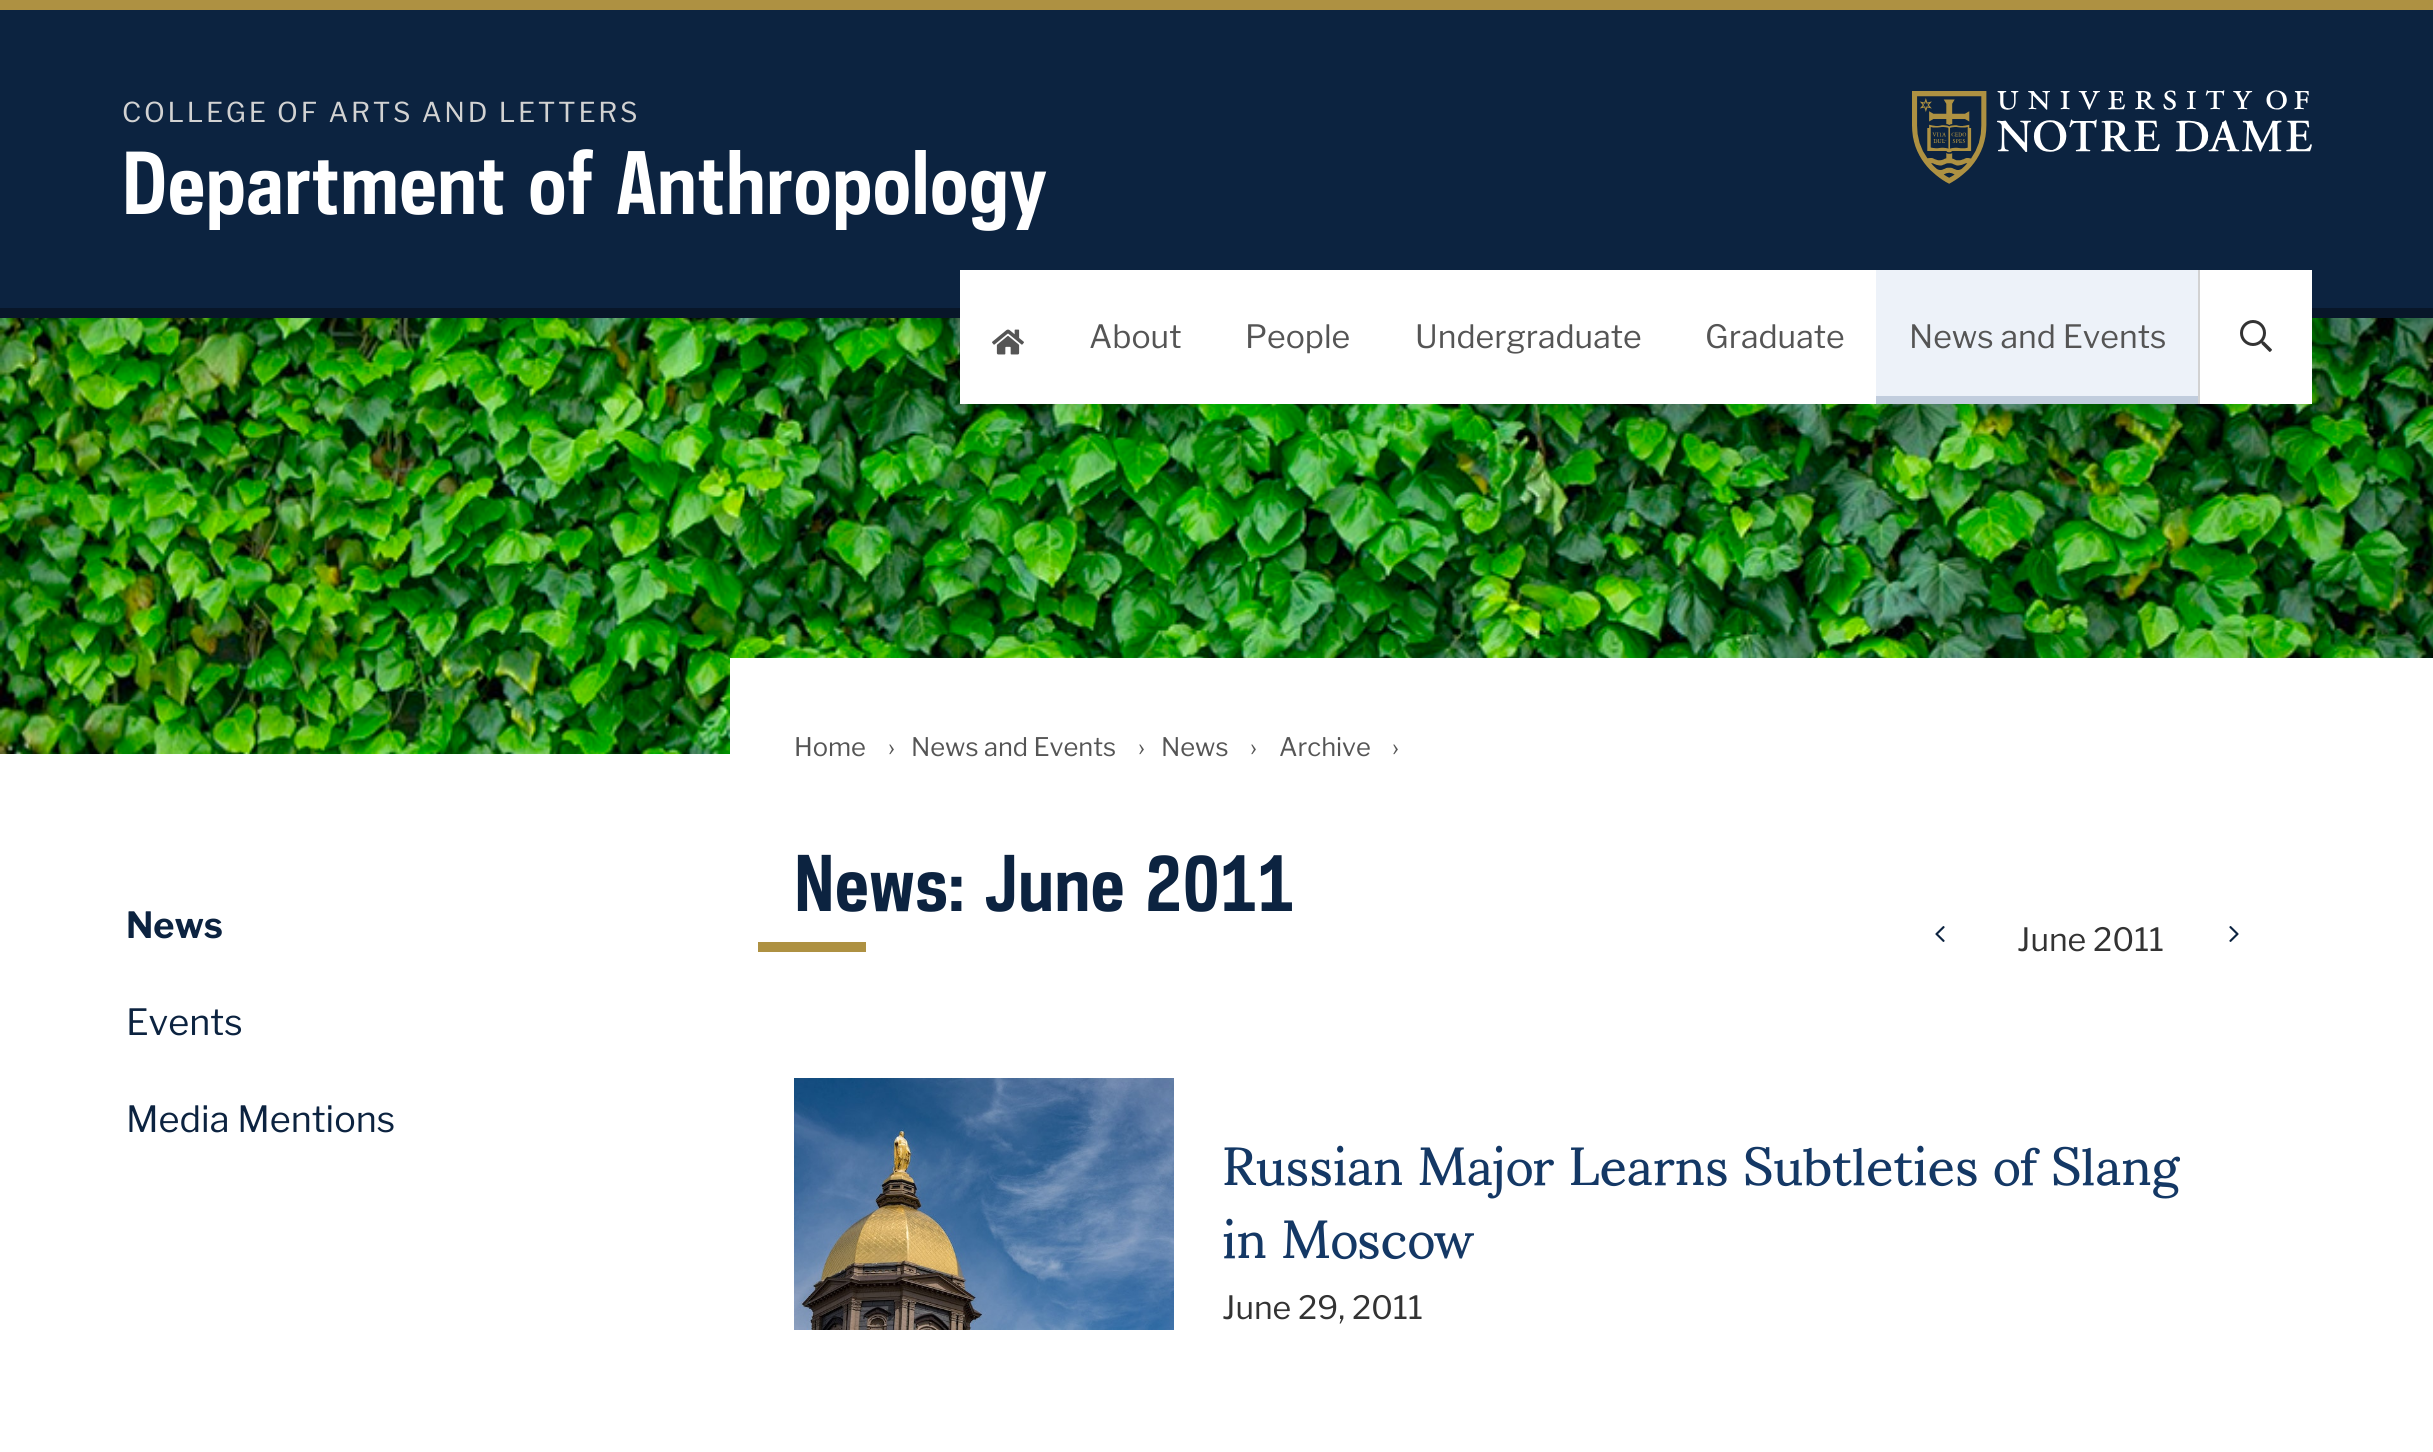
import math
import cairocffi as cairo

surface = cairo.ImageSurface(cairo.FORMAT_RGB24, 2433, 1452)
ctx = cairo.Context(surface)
options = cairo.FontOptions()
options.set_hint_metrics(cairo.HINT_METRICS_OFF)
options.set_hint_style(cairo.HINT_STYLE_NONE)
ctx.set_font_options(options)
ctx.set_miter_limit(4)


def rgb(r, g, b):
    ctx.set_source_rgb(r / 255, g / 255, b / 255)


def face(family, size, italic, bold):
    ctx.select_font_face(family, cairo.FONT_SLANT_ITALIC if italic else cairo.FONT_SLANT_NORMAL, cairo.FONT_WEIGHT_BOLD if bold else cairo.FONT_WEIGHT_NORMAL)
    ctx.set_font_size(size)


def label(x, y, s):
    ctx.move_to(x, y)
    ctx.show_text(s)


def tracked(x, y, s, letter, word):
    ctx.move_to(x, y)
    for ch in s:
        ctx.show_text(ch)
        ctx.rel_move_to(letter + word * (ch == ' '), 0)


def rect(x, y, w, h):
    ctx.rectangle(x, y, w, h)
    ctx.fill()


def image(path, x, y, w, h):
    ctx.save()
    ctx.set_source_surface(cairo.ImageSurface.create_from_png(path), x, y)
    ctx.rectangle(x, y, w, h)
    ctx.fill()
    ctx.restore()


rgb(255, 255, 255)
ctx.paint()
rgb(12, 35, 64)
rect(0, 10, 2433, 298)
rgb(174, 145, 66)
rect(0, 0, 2433, 10)
rgb(8, 22, 41)
rect(0, 308, 2433, 10)
face('Libre Franklin', 27.25, 0, 0)
rgb(210, 210, 210)
tracked(122, 122, 'COLLEGE OF ARTS AND LETTERS', 2.75, 0)
face('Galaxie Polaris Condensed', 80, 0, 1)
rgb(255, 255, 255)
label(122, 214, 'Department')
label(528, 214, 'of')
label(616, 214, 'Anthropology')
image('image0.png', 1912, 90, 400, 94)
image('image3.png', 0, 318, 2433, 436)
rect(960, 270, 1352, 134)
image('image1.png', 992, 329, 32, 26)
face('Libre Franklin', 32, 0, 0)
rgb(85, 85, 85)
label(1089, 348, 'About')
label(1245, 348, 'People')
label(1415, 348, 'Undergraduate')
label(1705, 348, 'Graduate')
rgb(237, 242, 249)
rect(1876, 270, 322, 126)
rgb(193, 205, 221)
rect(1876, 396, 322, 8)
rgb(85, 85, 85)
label(1909, 348, 'News and Events')
rgb(210, 210, 210)
rect(2198, 270, 2, 134)
image('image2.png', 2240, 320, 32, 32)
face('Libre Franklin', 36, 0, 1)
rgb(12, 35, 64)
label(126, 938, 'News')
face('Libre Franklin', 36, 0, 0)
label(126, 1035, 'Events')
label(126, 1132, 'Media Mentions')
rgb(255, 255, 255)
rect(730, 658, 1703, 96)
face('Libre Franklin', 25.5, 0, 0)
rgb(85, 85, 85)
label(794, 756, 'Home')
label(888, 756, '›')
label(911, 756, 'News and Events')
label(1138, 756, '›')
label(1161, 756, 'News')
label(1250, 756, '›')
label(1279, 756, 'Archive')
label(1392, 756, '›')
face('Galaxie Polaris Condensed', 72, 0, 1)
rgb(12, 35, 64)
label(794, 911, 'News:')
label(985, 911, 'June')
label(1145, 911, '2011')
rgb(174, 145, 66)
rect(758, 942, 108, 10)
image('image4.png', 1935, 926, 10, 16)
face('Libre Franklin', 32, 0, 0)
rgb(51, 51, 51)
label(2017, 951, 'June 2011')
image('image5.png', 2229, 926, 10, 16)
image('image6.png', 794, 1078, 380, 252)
face('Sumana', 53.6, 0, 0)
rgb(20, 56, 101)
label(1222, 1185, 'Russian Major Learns Subtleties of Slang')
label(1222, 1258, 'in Moscow')
face('Libre Franklin', 32, 0, 0)
rgb(51, 51, 51)
label(1222, 1319, 'June 29, 2011')
surface.write_to_png('render.png')
